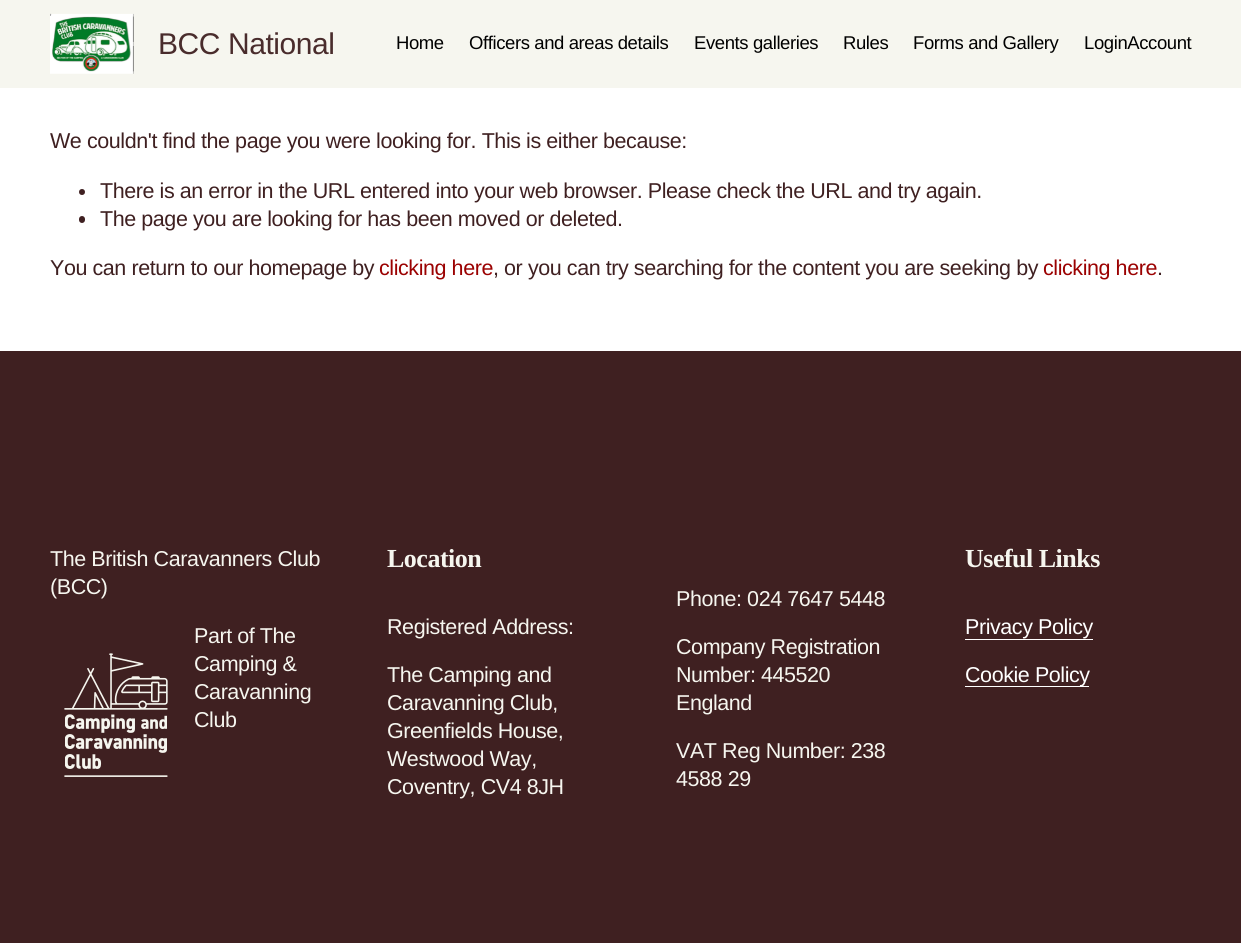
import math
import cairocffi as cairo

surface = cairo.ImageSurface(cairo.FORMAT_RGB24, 1241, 943)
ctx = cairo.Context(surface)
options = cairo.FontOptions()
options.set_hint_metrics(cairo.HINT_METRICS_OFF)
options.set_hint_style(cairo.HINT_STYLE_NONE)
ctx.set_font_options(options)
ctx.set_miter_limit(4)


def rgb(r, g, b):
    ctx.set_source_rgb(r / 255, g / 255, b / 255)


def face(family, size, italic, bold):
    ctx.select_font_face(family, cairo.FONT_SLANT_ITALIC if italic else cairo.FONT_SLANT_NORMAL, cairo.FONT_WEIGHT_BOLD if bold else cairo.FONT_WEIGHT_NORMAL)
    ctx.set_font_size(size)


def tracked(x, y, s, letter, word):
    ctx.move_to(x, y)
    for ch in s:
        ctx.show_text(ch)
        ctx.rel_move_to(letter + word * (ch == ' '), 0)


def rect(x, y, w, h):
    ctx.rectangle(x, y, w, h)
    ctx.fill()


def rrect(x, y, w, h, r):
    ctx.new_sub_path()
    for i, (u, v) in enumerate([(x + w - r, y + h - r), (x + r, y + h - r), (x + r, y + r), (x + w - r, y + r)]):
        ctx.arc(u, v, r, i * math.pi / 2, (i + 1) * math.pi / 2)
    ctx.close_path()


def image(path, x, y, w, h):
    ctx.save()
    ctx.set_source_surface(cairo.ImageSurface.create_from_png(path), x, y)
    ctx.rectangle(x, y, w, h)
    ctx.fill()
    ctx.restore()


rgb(255, 255, 255)
ctx.paint()
rgb(246, 246, 239)
rect(0, 0, 1241, 88)
image('image0.png', 50, 13, 84, 61)
face('Liberation Sans', 30, 0, 0)
rgb(73, 44, 44)
tracked(158, 54, 'BCC National', -0.43, 0)
face('Liberation Sans', 18.5, 0, 0)
rgb(0, 0, 0)
tracked(396, 49, 'Home', -0.4, 0)
tracked(469, 49, 'Officers and areas details', -0.4, 0)
tracked(694, 49, 'Events galleries', -0.4, 0)
tracked(843, 49, 'Rules', -0.4, 0)
tracked(913, 49, 'Forms and Gallery', -0.4, 0)
tracked(1084, 49, 'LoginAccount', -0.4, 0)
face('Liberation Sans', 21.5, 0, 0)
rgb(63, 32, 33)
tracked(50, 148, 'We couldn\'t find the page you were looking for. This is either because:', -0.43, 0)
ctx.new_path()
ctx.arc(82, 192, 3, 0, 2 * math.pi)
ctx.fill()
tracked(100, 198, 'There is an error in the URL entered into your web browser. Please check the URL and try again.', -0.43, 0)
rrect(79, 216, 6, 7, 3)
ctx.fill()
tracked(100, 226, 'The page you are looking for has been moved or deleted.', -0.43, 0)
tracked(50, 275, 'You can return to our homepage by', -0.43, 0)
rgb(155, 1, 1)
tracked(379, 275, 'clicking here', -0.43, 0)
rgb(63, 32, 33)
tracked(493, 275, ', or you can try searching for the content you are seeking by', -0.43, 0)
rgb(155, 1, 1)
tracked(1043, 275, 'clicking here', -0.43, 0)
rgb(63, 32, 33)
tracked(1157, 275, '.', -0.43, 0)
rect(0, 351, 1241, 592)
rgb(246, 246, 239)
tracked(50, 566, 'The British Caravanners Club', -0.43, 0)
tracked(50, 594, '(BCC)', -0.43, 0)
face('Liberation Serif', 26, 0, 1)
tracked(387, 567, 'Location', -0.5, 0)
face('Liberation Sans', 21.5, 0, 0)
tracked(387, 634, 'Registered Address:', -0.43, 0)
tracked(387, 682, 'The Camping and', -0.43, 0)
tracked(387, 710, 'Caravanning Club,', -0.43, 0)
tracked(387, 738, 'Greenfields House,', -0.43, 0)
tracked(387, 766, 'Westwood Way,', -0.43, 0)
tracked(387, 794, 'Coventry, CV4 8JH', -0.43, 0)
face('Liberation Serif', 26, 0, 1)
tracked(965, 567, 'Useful Links', -0.5, 0)
face('Liberation Sans', 21.5, 0, 0)
rgb(255, 255, 255)
tracked(965, 634, 'Privacy Policy', -0.43, 0)
rect(965, 639, 128, 1)
rect(965, 686, 124, 1)
tracked(965, 682, 'Cookie Policy', -0.43, 0)
image('image1.png', 64, 653, 104, 124)
rgb(246, 246, 239)
tracked(194, 643, 'Part of The', -0.43, 0)
tracked(194, 671, 'Camping &', -0.43, 0)
tracked(194, 699, 'Caravanning', -0.43, 0)
tracked(194, 727, 'Club', -0.43, 0)
tracked(676, 606, 'Phone: 024 7647 5448', -0.43, 0)
tracked(676, 654, 'Company Registration', -0.43, 0)
tracked(676, 682, 'Number: 445520', -0.43, 0)
tracked(676, 710, 'England', -0.43, 0)
tracked(676, 758, 'VAT Reg Number: 238', -0.43, 0)
tracked(676, 786, '4588 29', -0.43, 0)
surface.write_to_png('render.png')
